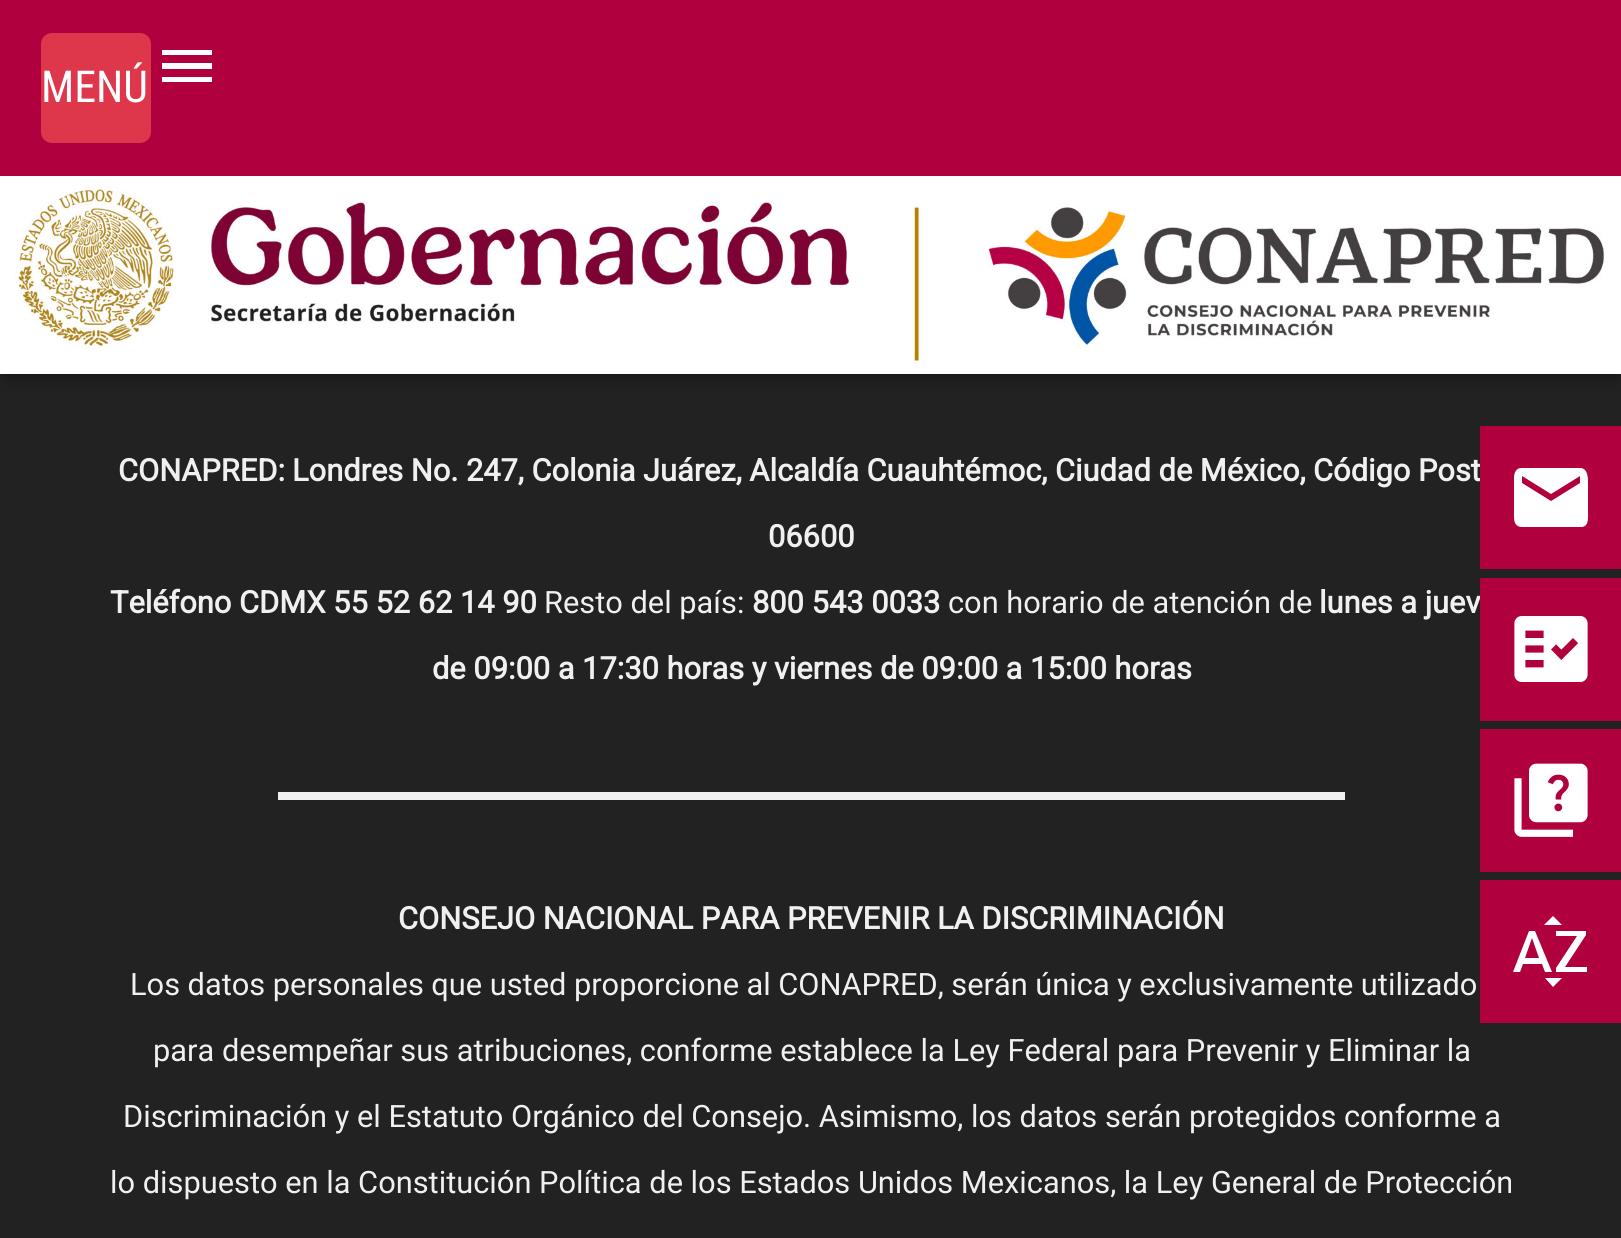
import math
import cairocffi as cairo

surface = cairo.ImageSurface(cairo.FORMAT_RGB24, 1621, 1238)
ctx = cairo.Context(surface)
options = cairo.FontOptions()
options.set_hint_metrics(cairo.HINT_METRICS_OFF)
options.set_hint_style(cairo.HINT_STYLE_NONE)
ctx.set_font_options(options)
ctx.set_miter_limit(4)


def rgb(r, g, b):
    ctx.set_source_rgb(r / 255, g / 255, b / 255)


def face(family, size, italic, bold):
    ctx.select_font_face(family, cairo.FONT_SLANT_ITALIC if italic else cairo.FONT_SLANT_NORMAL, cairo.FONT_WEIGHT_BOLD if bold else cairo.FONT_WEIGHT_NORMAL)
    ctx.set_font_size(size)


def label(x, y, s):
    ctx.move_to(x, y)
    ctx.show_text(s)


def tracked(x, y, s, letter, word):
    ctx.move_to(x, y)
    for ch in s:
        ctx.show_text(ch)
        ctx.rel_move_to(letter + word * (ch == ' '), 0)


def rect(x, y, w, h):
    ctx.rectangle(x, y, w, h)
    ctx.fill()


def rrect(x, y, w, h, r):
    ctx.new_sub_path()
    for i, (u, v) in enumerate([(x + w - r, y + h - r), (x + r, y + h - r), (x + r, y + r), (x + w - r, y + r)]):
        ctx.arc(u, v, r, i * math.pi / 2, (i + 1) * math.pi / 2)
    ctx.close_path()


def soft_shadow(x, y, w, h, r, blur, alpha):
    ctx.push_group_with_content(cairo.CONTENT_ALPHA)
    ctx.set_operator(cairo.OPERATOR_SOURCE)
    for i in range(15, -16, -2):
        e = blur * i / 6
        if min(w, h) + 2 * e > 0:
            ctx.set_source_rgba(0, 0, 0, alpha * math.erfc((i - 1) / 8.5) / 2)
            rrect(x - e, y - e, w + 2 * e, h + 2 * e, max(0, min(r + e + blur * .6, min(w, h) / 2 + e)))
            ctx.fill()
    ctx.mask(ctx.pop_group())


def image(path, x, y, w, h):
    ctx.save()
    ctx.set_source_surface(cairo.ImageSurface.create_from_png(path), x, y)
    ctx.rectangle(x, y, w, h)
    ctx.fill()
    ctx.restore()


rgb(34, 34, 34)
ctx.paint()
rgb(0, 0, 0)
soft_shadow(6, 14, 1611, 363, 0, 9.5, 0.41)
rgb(176, 0, 61)
rect(0, 0, 1621, 176)
rgb(222, 54, 75)
rrect(41, 33, 110, 110, 11)
ctx.fill()
face('Roboto Condensed', 44, 0, 0)
rgb(255, 255, 255)
label(41, 102, 'MENÚ')
ctx.new_path()
ctx.move_to(162, 50)
ctx.line_to(212, 50)
ctx.line_to(212, 55)
ctx.line_to(162, 55)
ctx.close_path()
ctx.move_to(162, 69)
ctx.line_to(162, 63)
ctx.line_to(212, 63)
ctx.line_to(212, 69)
ctx.close_path()
ctx.move_to(162, 82)
ctx.line_to(162, 77)
ctx.line_to(212, 77)
ctx.line_to(212, 82)
ctx.close_path()
ctx.fill()
image('image0.png', 0, 176, 1621, 198)
face('Roboto', 30.8, 0, 1)
rgb(240, 240, 240)
label(118, 481, 'CONAPRED:')
tracked(292, 481, 'Londres No. 247, Colonia Juárez, Alcaldía Cuauhtémoc, Ciudad de México, Código Post', 0, -0.1)
label(768, 547, '06600')
label(110, 613, 'Teléfono CDMX 55 52 62 14 90')
face('Roboto', 30.8, 0, 0)
label(544, 613, 'Resto del país:')
face('Roboto', 30.8, 0, 1)
label(752, 613, '800 543 0033')
face('Roboto', 30.8, 0, 0)
label(948, 613, 'con horario de atención de')
face('Roboto', 30.8, 0, 1)
label(1319, 613, 'lunes a juev')
label(432, 679, 'de 09:00 a 17:30 horas y viernes de 09:00 a 15:00 horas')
rect(278, 792, 1067, 8)
label(398, 929, 'CONSEJO NACIONAL PARA PREVENIR LA DISCRIMINACIÓN')
face('Roboto', 30.8, 0, 0)
tracked(130, 995, 'Los datos personales que usted proporcione al CONAPRED, serán única y exclusivamente utilizado', 0, -0.1)
label(153, 1061, 'para desempeñar sus atribuciones, conforme establece la Ley Federal para Prevenir y Eliminar la')
label(123, 1127, 'Discriminación y el Estatuto Orgánico del Consejo. Asimismo, los datos serán protegidos conforme a')
label(110, 1193, 'lo dispuesto en la Constitución Política de los Estados Unidos Mexicanos, la Ley General de Protección')
rgb(176, 0, 61)
rect(1480, 426, 141, 143)
rgb(255, 255, 255)
ctx.new_path()
ctx.move_to(1580, 483)
ctx.line_to(1580, 476)
ctx.line_to(1551, 494)
ctx.line_to(1522, 476)
ctx.line_to(1522, 483)
ctx.line_to(1551, 501)
ctx.close_path()
ctx.move_to(1580, 468)
ctx.curve_to(1588, 468, 1588, 478, 1588, 483)
ctx.line_to(1588, 512)
ctx.curve_to(1588, 518, 1589, 526, 1582, 527)
ctx.line_to(1521, 527)
ctx.curve_to(1513, 526, 1514, 518, 1514, 512)
ctx.line_to(1514, 483)
ctx.curve_to(1514, 478, 1513, 470, 1520, 468)
ctx.close_path()
ctx.fill()
rgb(176, 0, 61)
rect(1480, 578, 141, 143)
image('image1.png', 1514, 616, 74, 66)
rect(1480, 729, 141, 143)
image('image2.png', 1514, 763, 74, 74)
rect(1480, 880, 141, 143)
rgb(255, 255, 255)
ctx.new_path()
ctx.move_to(1565, 967)
ctx.line_to(1587, 967)
ctx.line_to(1587, 972)
ctx.line_to(1556, 972)
ctx.line_to(1556, 968)
ctx.line_to(1577, 936)
ctx.line_to(1556, 936)
ctx.line_to(1556, 931)
ctx.line_to(1586, 931)
ctx.line_to(1586, 935)
ctx.close_path()
ctx.move_to(1525, 958)
ctx.line_to(1539, 958)
ctx.line_to(1532, 938)
ctx.close_path()
ctx.move_to(1529, 931)
ctx.line_to(1535, 931)
ctx.line_to(1552, 972)
ctx.line_to(1545, 972)
ctx.line_to(1542, 964)
ctx.line_to(1523, 964)
ctx.line_to(1520, 972)
ctx.line_to(1513, 972)
ctx.close_path()
ctx.move_to(1545, 978)
ctx.line_to(1562, 978)
ctx.line_to(1553, 987)
ctx.close_path()
ctx.move_to(1562, 925)
ctx.line_to(1544, 925)
ctx.line_to(1553, 916)
ctx.close_path()
ctx.fill()
surface.write_to_png('render.png')
